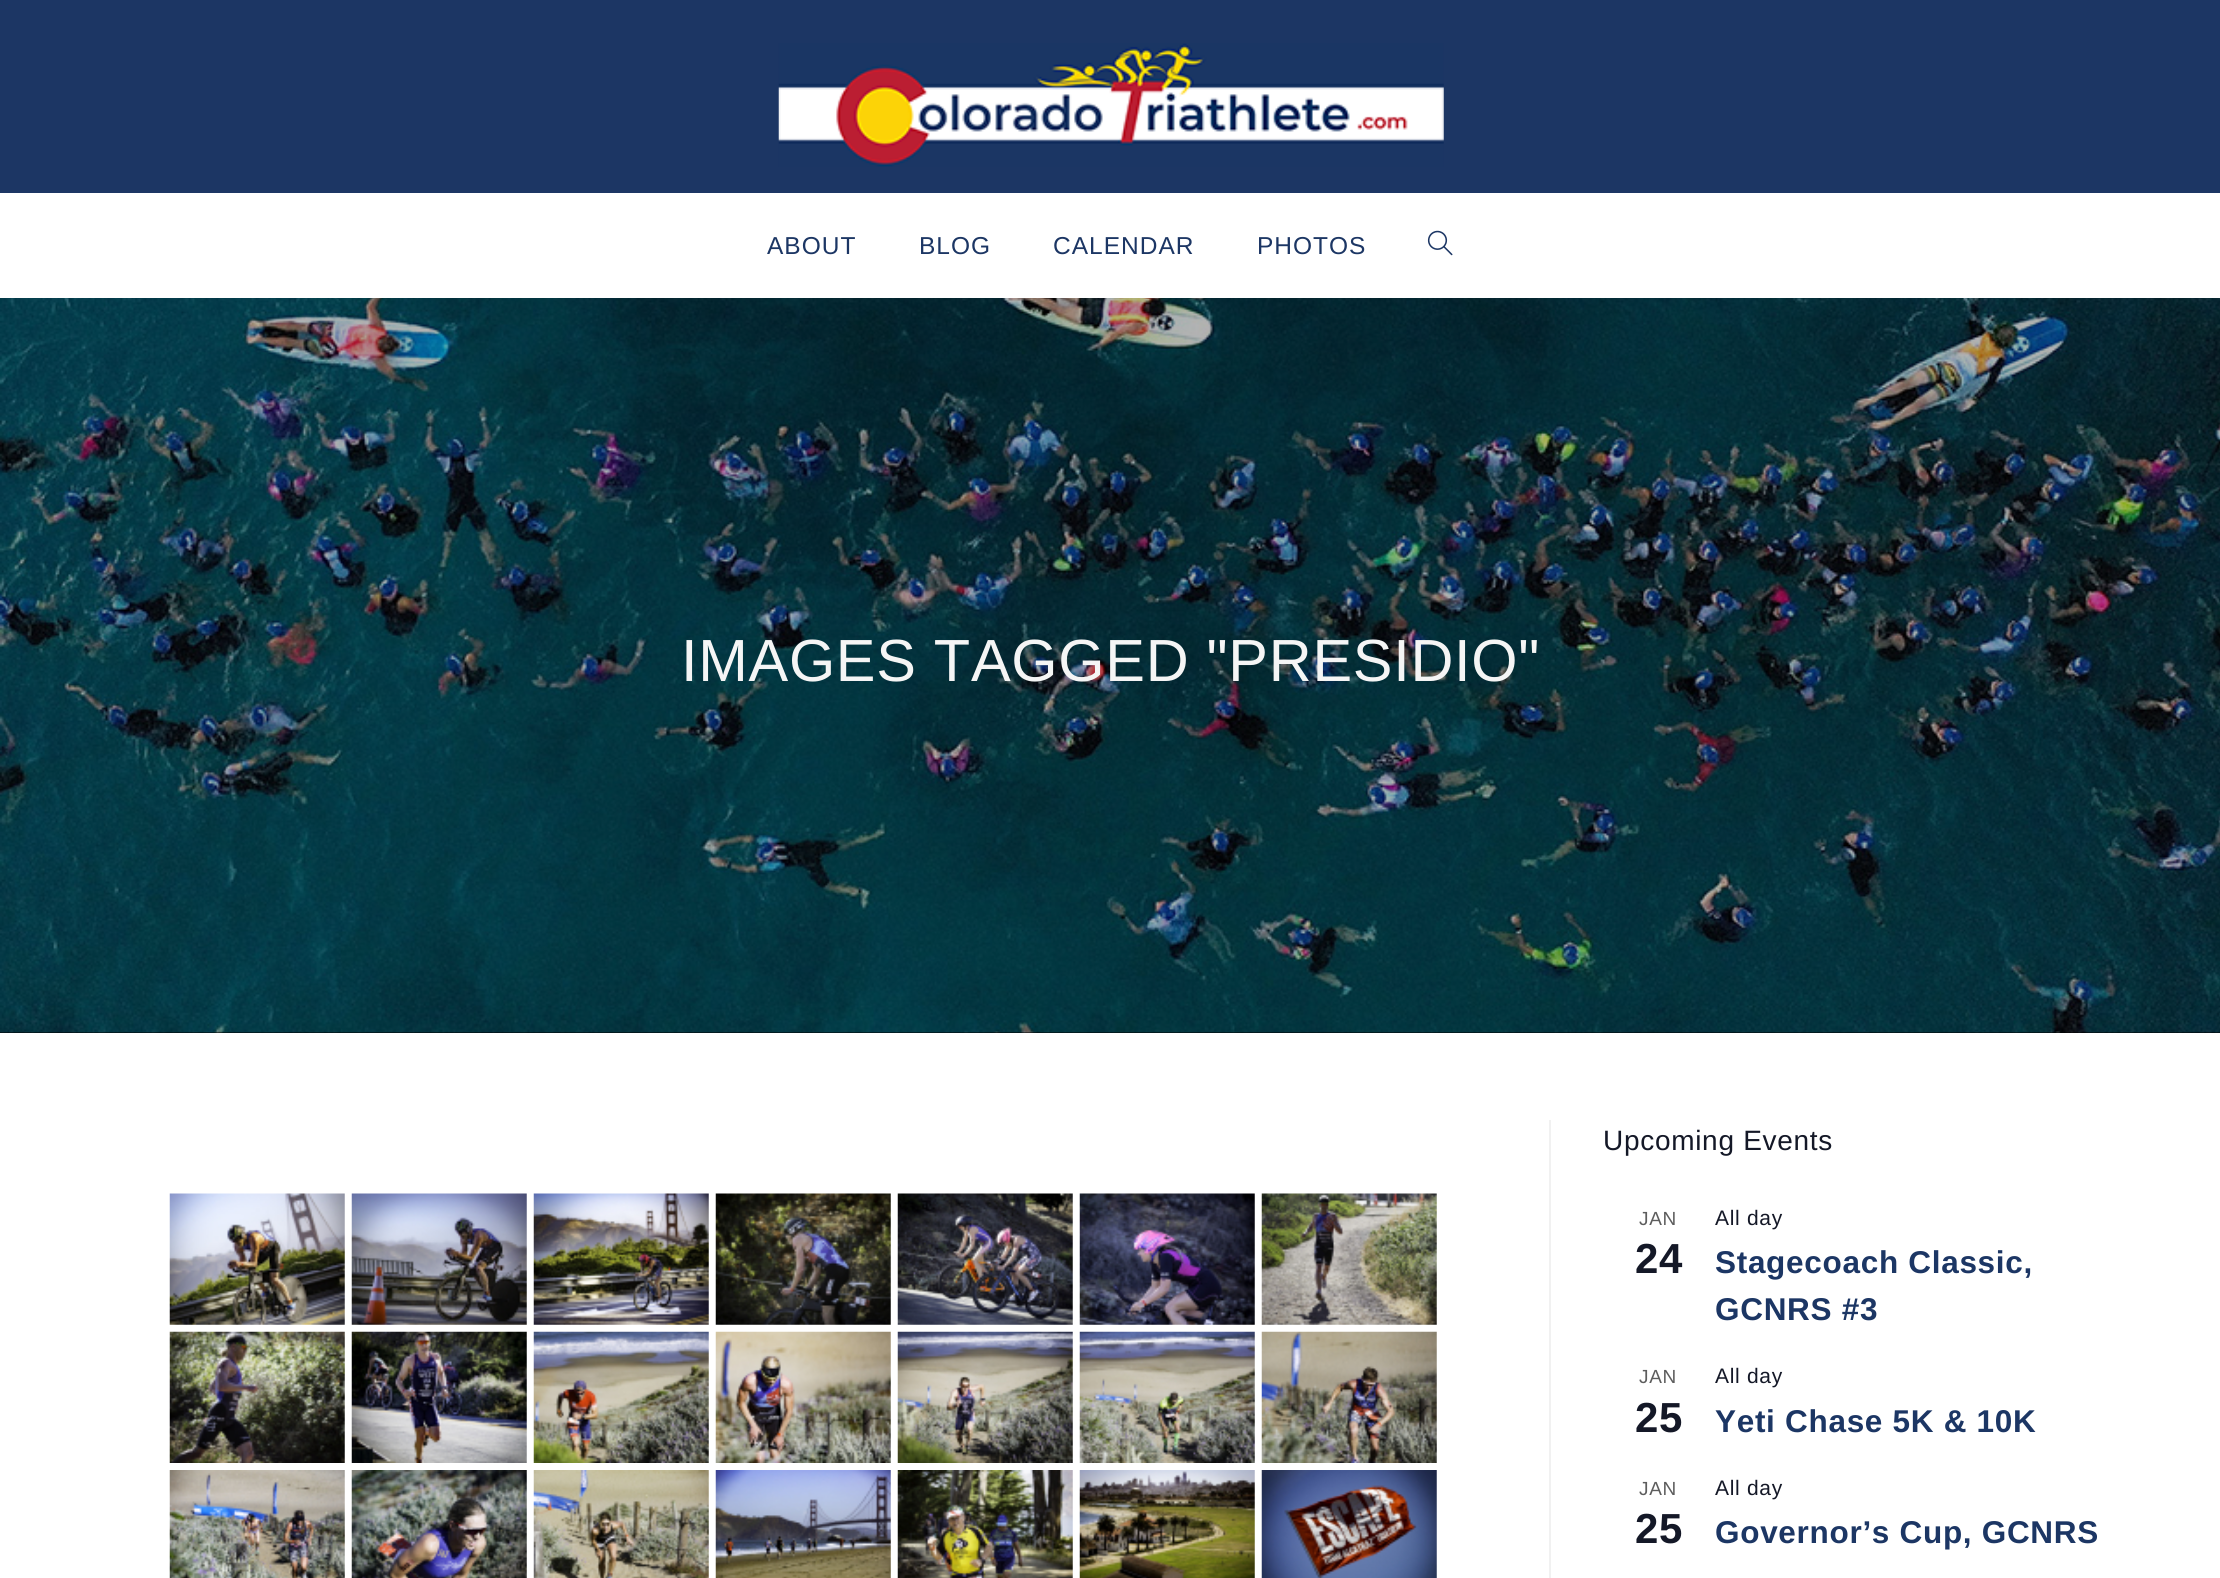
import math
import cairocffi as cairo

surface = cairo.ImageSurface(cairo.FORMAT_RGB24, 2220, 1578)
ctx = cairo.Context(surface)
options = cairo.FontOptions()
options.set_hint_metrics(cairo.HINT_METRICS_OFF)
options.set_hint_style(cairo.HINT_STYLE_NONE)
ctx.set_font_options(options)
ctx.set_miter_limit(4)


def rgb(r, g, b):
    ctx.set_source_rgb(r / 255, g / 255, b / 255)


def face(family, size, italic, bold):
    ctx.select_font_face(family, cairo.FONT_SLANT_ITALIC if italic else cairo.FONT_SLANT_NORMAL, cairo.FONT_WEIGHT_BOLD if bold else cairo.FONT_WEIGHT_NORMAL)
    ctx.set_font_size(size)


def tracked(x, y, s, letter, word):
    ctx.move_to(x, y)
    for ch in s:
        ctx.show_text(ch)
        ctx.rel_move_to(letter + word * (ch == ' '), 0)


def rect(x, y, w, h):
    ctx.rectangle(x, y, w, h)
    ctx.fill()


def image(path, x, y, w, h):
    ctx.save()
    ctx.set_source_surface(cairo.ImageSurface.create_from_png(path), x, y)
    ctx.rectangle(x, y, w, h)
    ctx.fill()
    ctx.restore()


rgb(255, 255, 255)
ctx.paint()
rgb(28, 54, 100)
rect(0, 0, 2220, 193)
image('image0.png', 778, 43, 666, 124)
face('Liberation Sans', 24.5, 0, 0)
tracked(767, 254, 'ABOUT', 1, 0)
tracked(919, 254, 'BLOG', 1, 0)
tracked(1053, 254, 'CALENDAR', 1, 0)
tracked(1257, 254, 'PHOTOS', 1, 0)
image('image1.png', 1427, 230, 26, 26)
rgb(0, 0, 0)
rect(0, 1032, 2220, 1)
image('image2.png', 0, 298, 2220, 735)
face('Liberation Sans', 59.5, 0, 0)
rgb(245, 245, 245)
tracked(681, 681, 'IMAGES TAGGED "PRESIDIO"', 0.7, 0)
rgb(241, 241, 241)
rect(1549, 1120, 2, 458)
image('image3.png', 169, 1193, 176, 132)
image('image4.png', 351, 1193, 176, 132)
image('image5.png', 533, 1193, 176, 132)
image('image6.png', 715, 1193, 176, 132)
image('image7.png', 897, 1193, 176, 132)
image('image8.png', 1079, 1193, 176, 132)
image('image9.png', 1261, 1193, 176, 132)
image('image10.png', 169, 1331, 176, 132)
image('image11.png', 351, 1331, 176, 132)
image('image12.png', 533, 1331, 176, 132)
image('image13.png', 715, 1331, 176, 132)
image('image14.png', 897, 1331, 176, 132)
image('image15.png', 1079, 1331, 176, 132)
image('image16.png', 1261, 1331, 176, 132)
image('image17.png', 169, 1470, 176, 108)
image('image18.png', 351, 1470, 176, 108)
image('image19.png', 533, 1470, 176, 108)
image('image20.png', 715, 1470, 176, 108)
image('image21.png', 897, 1470, 176, 108)
image('image22.png', 1079, 1470, 176, 108)
image('image23.png', 1261, 1470, 176, 108)
face('Liberation Sans', 28, 0, 0)
rgb(20, 24, 39)
tracked(1603, 1150, 'Upcoming Events', 0.7, 0)
face('Liberation Sans', 19, 0, 0)
rgb(93, 93, 93)
tracked(1639, 1225, 'JAN', 0.7, 0)
face('Liberation Sans', 42, 0, 1)
rgb(20, 24, 39)
tracked(1635, 1273, '24', 0.7, 0)
face('Liberation Sans', 21, 0, 0)
tracked(1715, 1225, 'All day', 0.7, 0)
face('Liberation Sans', 31.5, 0, 1)
rgb(28, 54, 100)
tracked(1715, 1273, 'Stagecoach Classic,', 0.7, 0)
tracked(1715, 1320, 'GCNRS #3', 0.7, 0)
face('Liberation Sans', 19, 0, 0)
rgb(93, 93, 93)
tracked(1639, 1383, 'JAN', 0.7, 0)
face('Liberation Sans', 42, 0, 1)
rgb(20, 24, 39)
tracked(1635, 1432, '25', 0.7, 0)
face('Liberation Sans', 21, 0, 0)
tracked(1715, 1383, 'All day', 0.7, 0)
face('Liberation Sans', 31.5, 0, 1)
rgb(28, 54, 100)
tracked(1715, 1432, 'Yeti Chase 5K & 10K', 0.7, 0)
face('Liberation Sans', 19, 0, 0)
rgb(93, 93, 93)
tracked(1639, 1495, 'JAN', 0.7, 0)
face('Liberation Sans', 42, 0, 1)
rgb(20, 24, 39)
tracked(1635, 1543, '25', 0.7, 0)
face('Liberation Sans', 21, 0, 0)
tracked(1715, 1495, 'All day', 0.7, 0)
face('Liberation Sans', 31.5, 0, 1)
rgb(28, 54, 100)
tracked(1715, 1543, 'Governor’s Cup, GCNRS', 0.7, 0)
surface.write_to_png('render.png')
